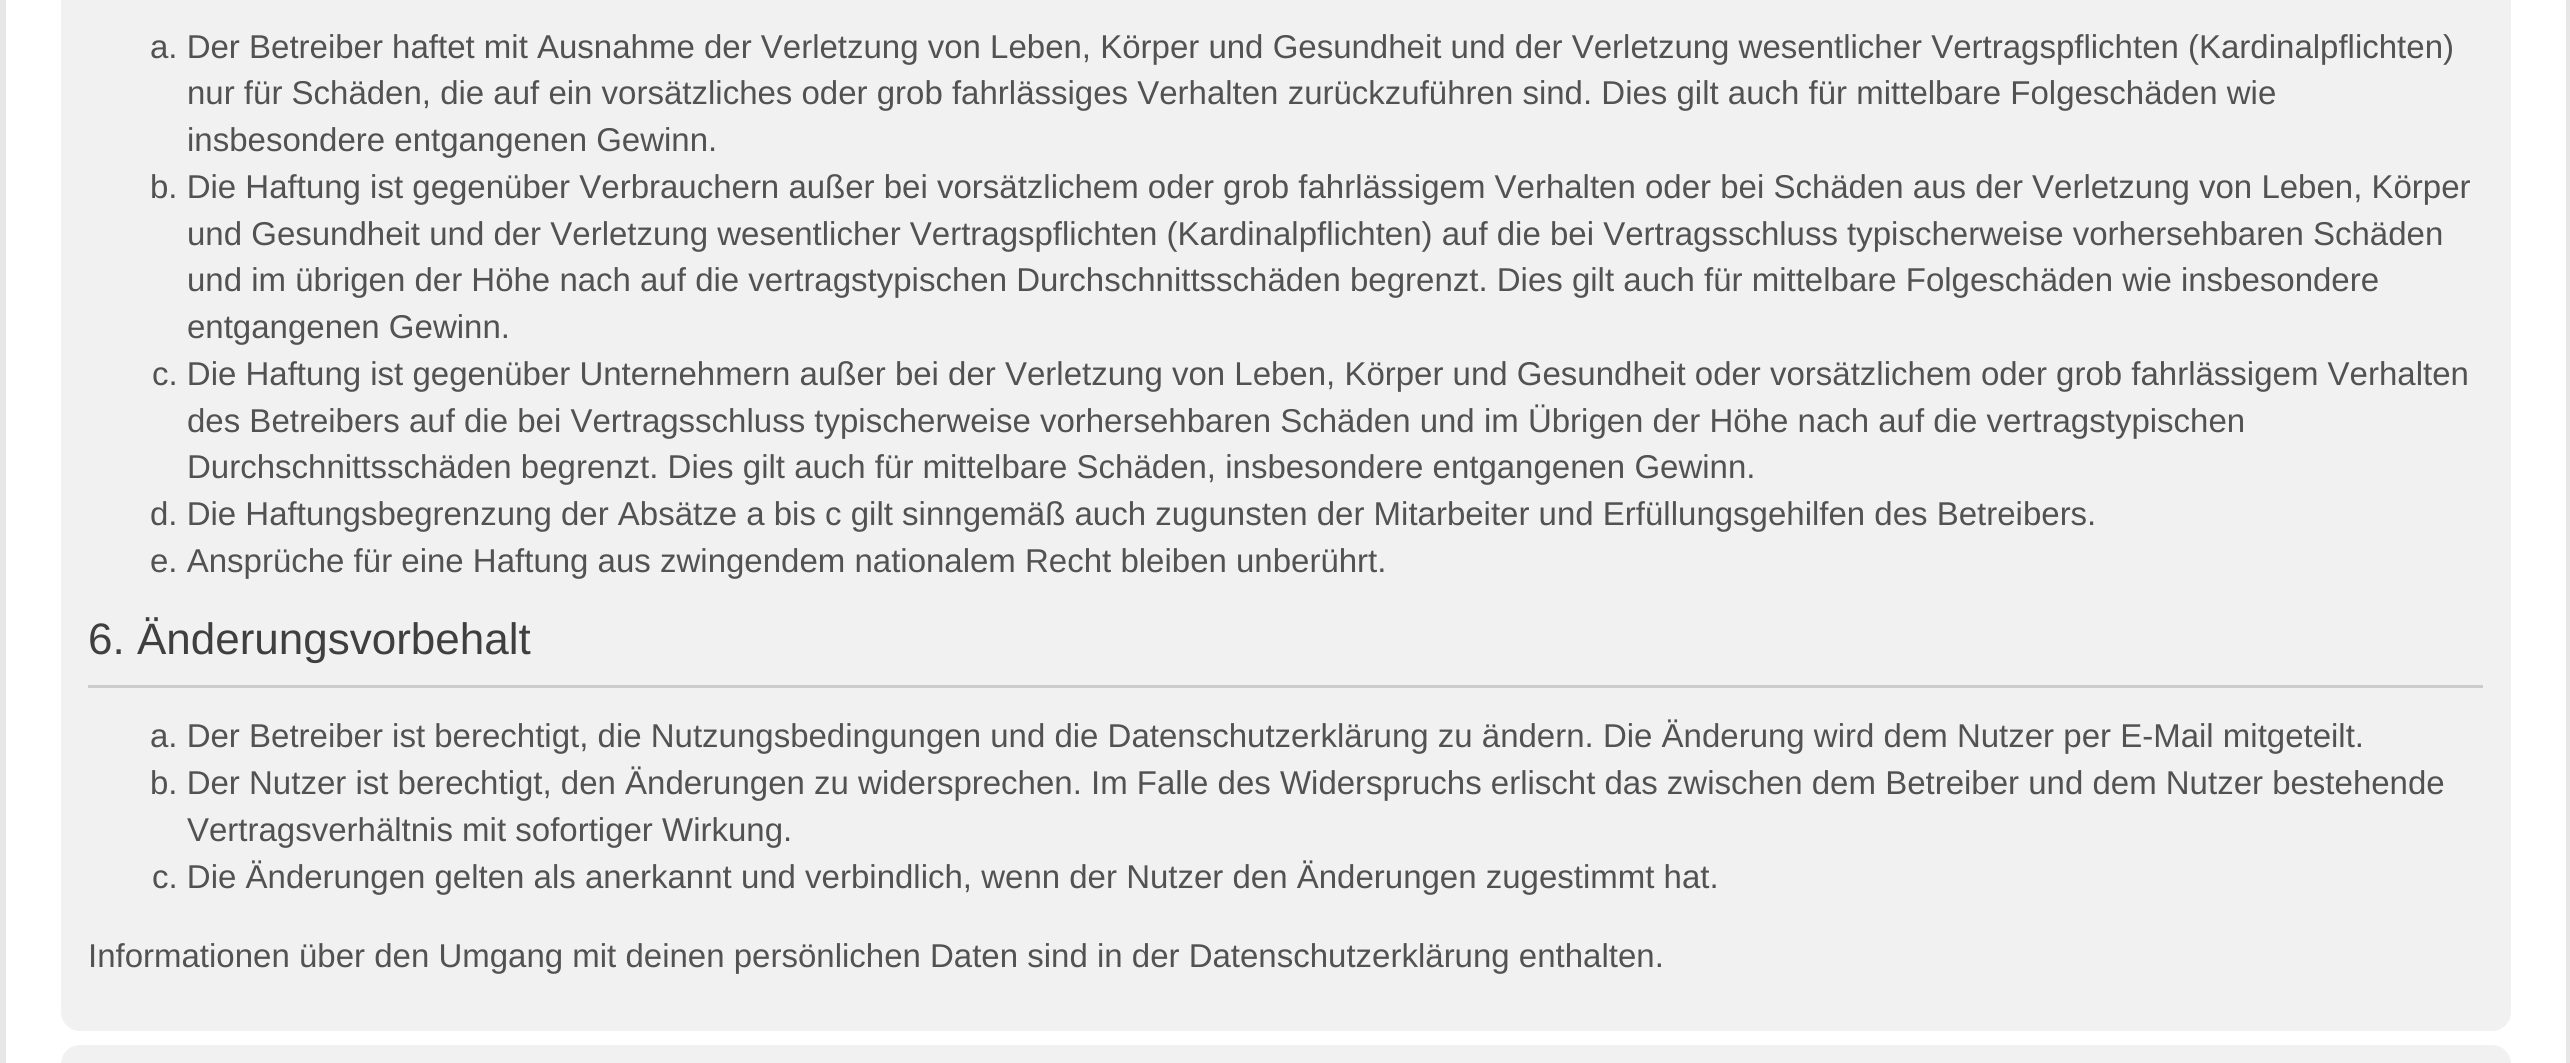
import math
import cairocffi as cairo

surface = cairo.ImageSurface(cairo.FORMAT_RGB24, 2570, 1063)
ctx = cairo.Context(surface)
options = cairo.FontOptions()
options.set_hint_metrics(cairo.HINT_METRICS_OFF)
options.set_hint_style(cairo.HINT_STYLE_NONE)
ctx.set_font_options(options)
ctx.set_miter_limit(4)


def rgb(r, g, b):
    ctx.set_source_rgb(r / 255, g / 255, b / 255)


def face(family, size, italic, bold):
    ctx.select_font_face(family, cairo.FONT_SLANT_ITALIC if italic else cairo.FONT_SLANT_NORMAL, cairo.FONT_WEIGHT_BOLD if bold else cairo.FONT_WEIGHT_NORMAL)
    ctx.set_font_size(size)


def label(x, y, s):
    ctx.move_to(x, y)
    ctx.show_text(s)


def rect(x, y, w, h):
    ctx.rectangle(x, y, w, h)
    ctx.fill()


def rrect(x, y, w, h, r):
    ctx.new_sub_path()
    for i, (u, v) in enumerate([(x + w - r, y + h - r), (x + r, y + h - r), (x + r, y + r), (x + w - r, y + r)]):
        ctx.arc(u, v, r, i * math.pi / 2, (i + 1) * math.pi / 2)
    ctx.close_path()


rgb(255, 255, 255)
ctx.paint()
rgb(231, 231, 231)
ctx.set_fill_rule(cairo.FILL_RULE_EVEN_ODD)
ctx.new_path()
ctx.move_to(55, -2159)
ctx.line_to(2516, -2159)
ctx.curve_to(2547, -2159, 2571, -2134, 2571, -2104)
ctx.line_to(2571, 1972)
ctx.curve_to(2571, 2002, 2547, 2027, 2516, 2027)
ctx.line_to(55, 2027)
ctx.curve_to(25, 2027, 0, 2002, 0, 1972)
ctx.line_to(0, -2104)
ctx.curve_to(0, -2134, 25, -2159, 55, -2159)
ctx.close_path()
ctx.move_to(55, -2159)
ctx.line_to(2516, -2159)
ctx.curve_to(2544, -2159, 2566, -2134, 2566, -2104)
ctx.line_to(2566, 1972)
ctx.curve_to(2566, 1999, 2544, 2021, 2516, 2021)
ctx.line_to(55, 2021)
ctx.curve_to(28, 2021, 6, 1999, 6, 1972)
ctx.line_to(6, -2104)
ctx.curve_to(6, -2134, 28, -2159, 55, -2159)
ctx.close_path()
ctx.fill()
rgb(241, 241, 241)
rrect(61, -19, 2450, 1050, 19)
ctx.fill()
face('Liberation Sans', 33, 0, 0)
rgb(82, 82, 82)
label(150, 58, 'a. Der Betreiber haftet mit Ausnahme der Verletzung von Leben, Körper und Gesundheit und der Verletzung wesentlicher Vertragspflichten (Kardinalpflichten)')
label(187, 104, 'nur für Schäden, die auf ein vorsätzliches oder grob fahrlässiges Verhalten zurückzuführen sind. Dies gilt auch für mittelbare Folgeschäden wie')
label(187, 151, 'insbesondere entgangenen Gewinn.')
label(150, 198, 'b. Die Haftung ist gegenüber Verbrauchern außer bei vorsätzlichem oder grob fahrlässigem Verhalten oder bei Schäden aus der Verletzung von Leben, Körper')
label(187, 245, 'und Gesundheit und der Verletzung wesentlicher Vertragspflichten (Kardinalpflichten) auf die bei Vertragsschluss typischerweise vorhersehbaren Schäden')
label(187, 291, 'und im übrigen der Höhe nach auf die vertragstypischen Durchschnittsschäden begrenzt. Dies gilt auch für mittelbare Folgeschäden wie insbesondere')
label(187, 338, 'entgangenen Gewinn.')
label(152, 385, 'c. Die Haftung ist gegenüber Unternehmern außer bei der Verletzung von Leben, Körper und Gesundheit oder vorsätzlichem oder grob fahrlässigem Verhalten')
label(187, 432, 'des Betreibers auf die bei Vertragsschluss typischerweise vorhersehbaren Schäden und im Übrigen der Höhe nach auf die vertragstypischen')
label(187, 478, 'Durchschnittsschäden begrenzt. Dies gilt auch für mittelbare Schäden, insbesondere entgangenen Gewinn.')
label(150, 525, 'd. Die Haftungsbegrenzung der Absätze a bis c gilt sinngemäß auch zugunsten der Mitarbeiter und Erfüllungsgehilfen des Betreibers.')
label(150, 572, 'e. Ansprüche für eine Haftung aus zwingendem nationalem Recht bleiben unberührt.')
rgb(204, 204, 204)
rect(88, 685, 2395, 3)
face('Liberation Sans', 44, 0, 0)
rgb(63, 63, 63)
label(88, 654, '6. Änderungsvorbehalt')
face('Liberation Sans', 33, 0, 0)
rgb(82, 82, 82)
label(150, 747, 'a. Der Betreiber ist berechtigt, die Nutzungsbedingungen und die Datenschutzerklärung zu ändern. Die Änderung wird dem Nutzer per E-Mail mitgeteilt.')
label(150, 794, 'b. Der Nutzer ist berechtigt, den Änderungen zu widersprechen. Im Falle des Widerspruchs erlischt das zwischen dem Betreiber und dem Nutzer bestehende')
label(187, 841, 'Vertragsverhältnis mit sofortiger Wirkung.')
label(152, 888, 'c. Die Änderungen gelten als anerkannt und verbindlich, wenn der Nutzer den Änderungen zugestimmt hat.')
label(88, 967, 'Informationen über den Umgang mit deinen persönlichen Daten sind in der Datenschutzerklärung enthalten.')
rgb(241, 241, 241)
rrect(61, 1045, 2450, 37, 19)
ctx.fill()
surface.write_to_png('render.png')
